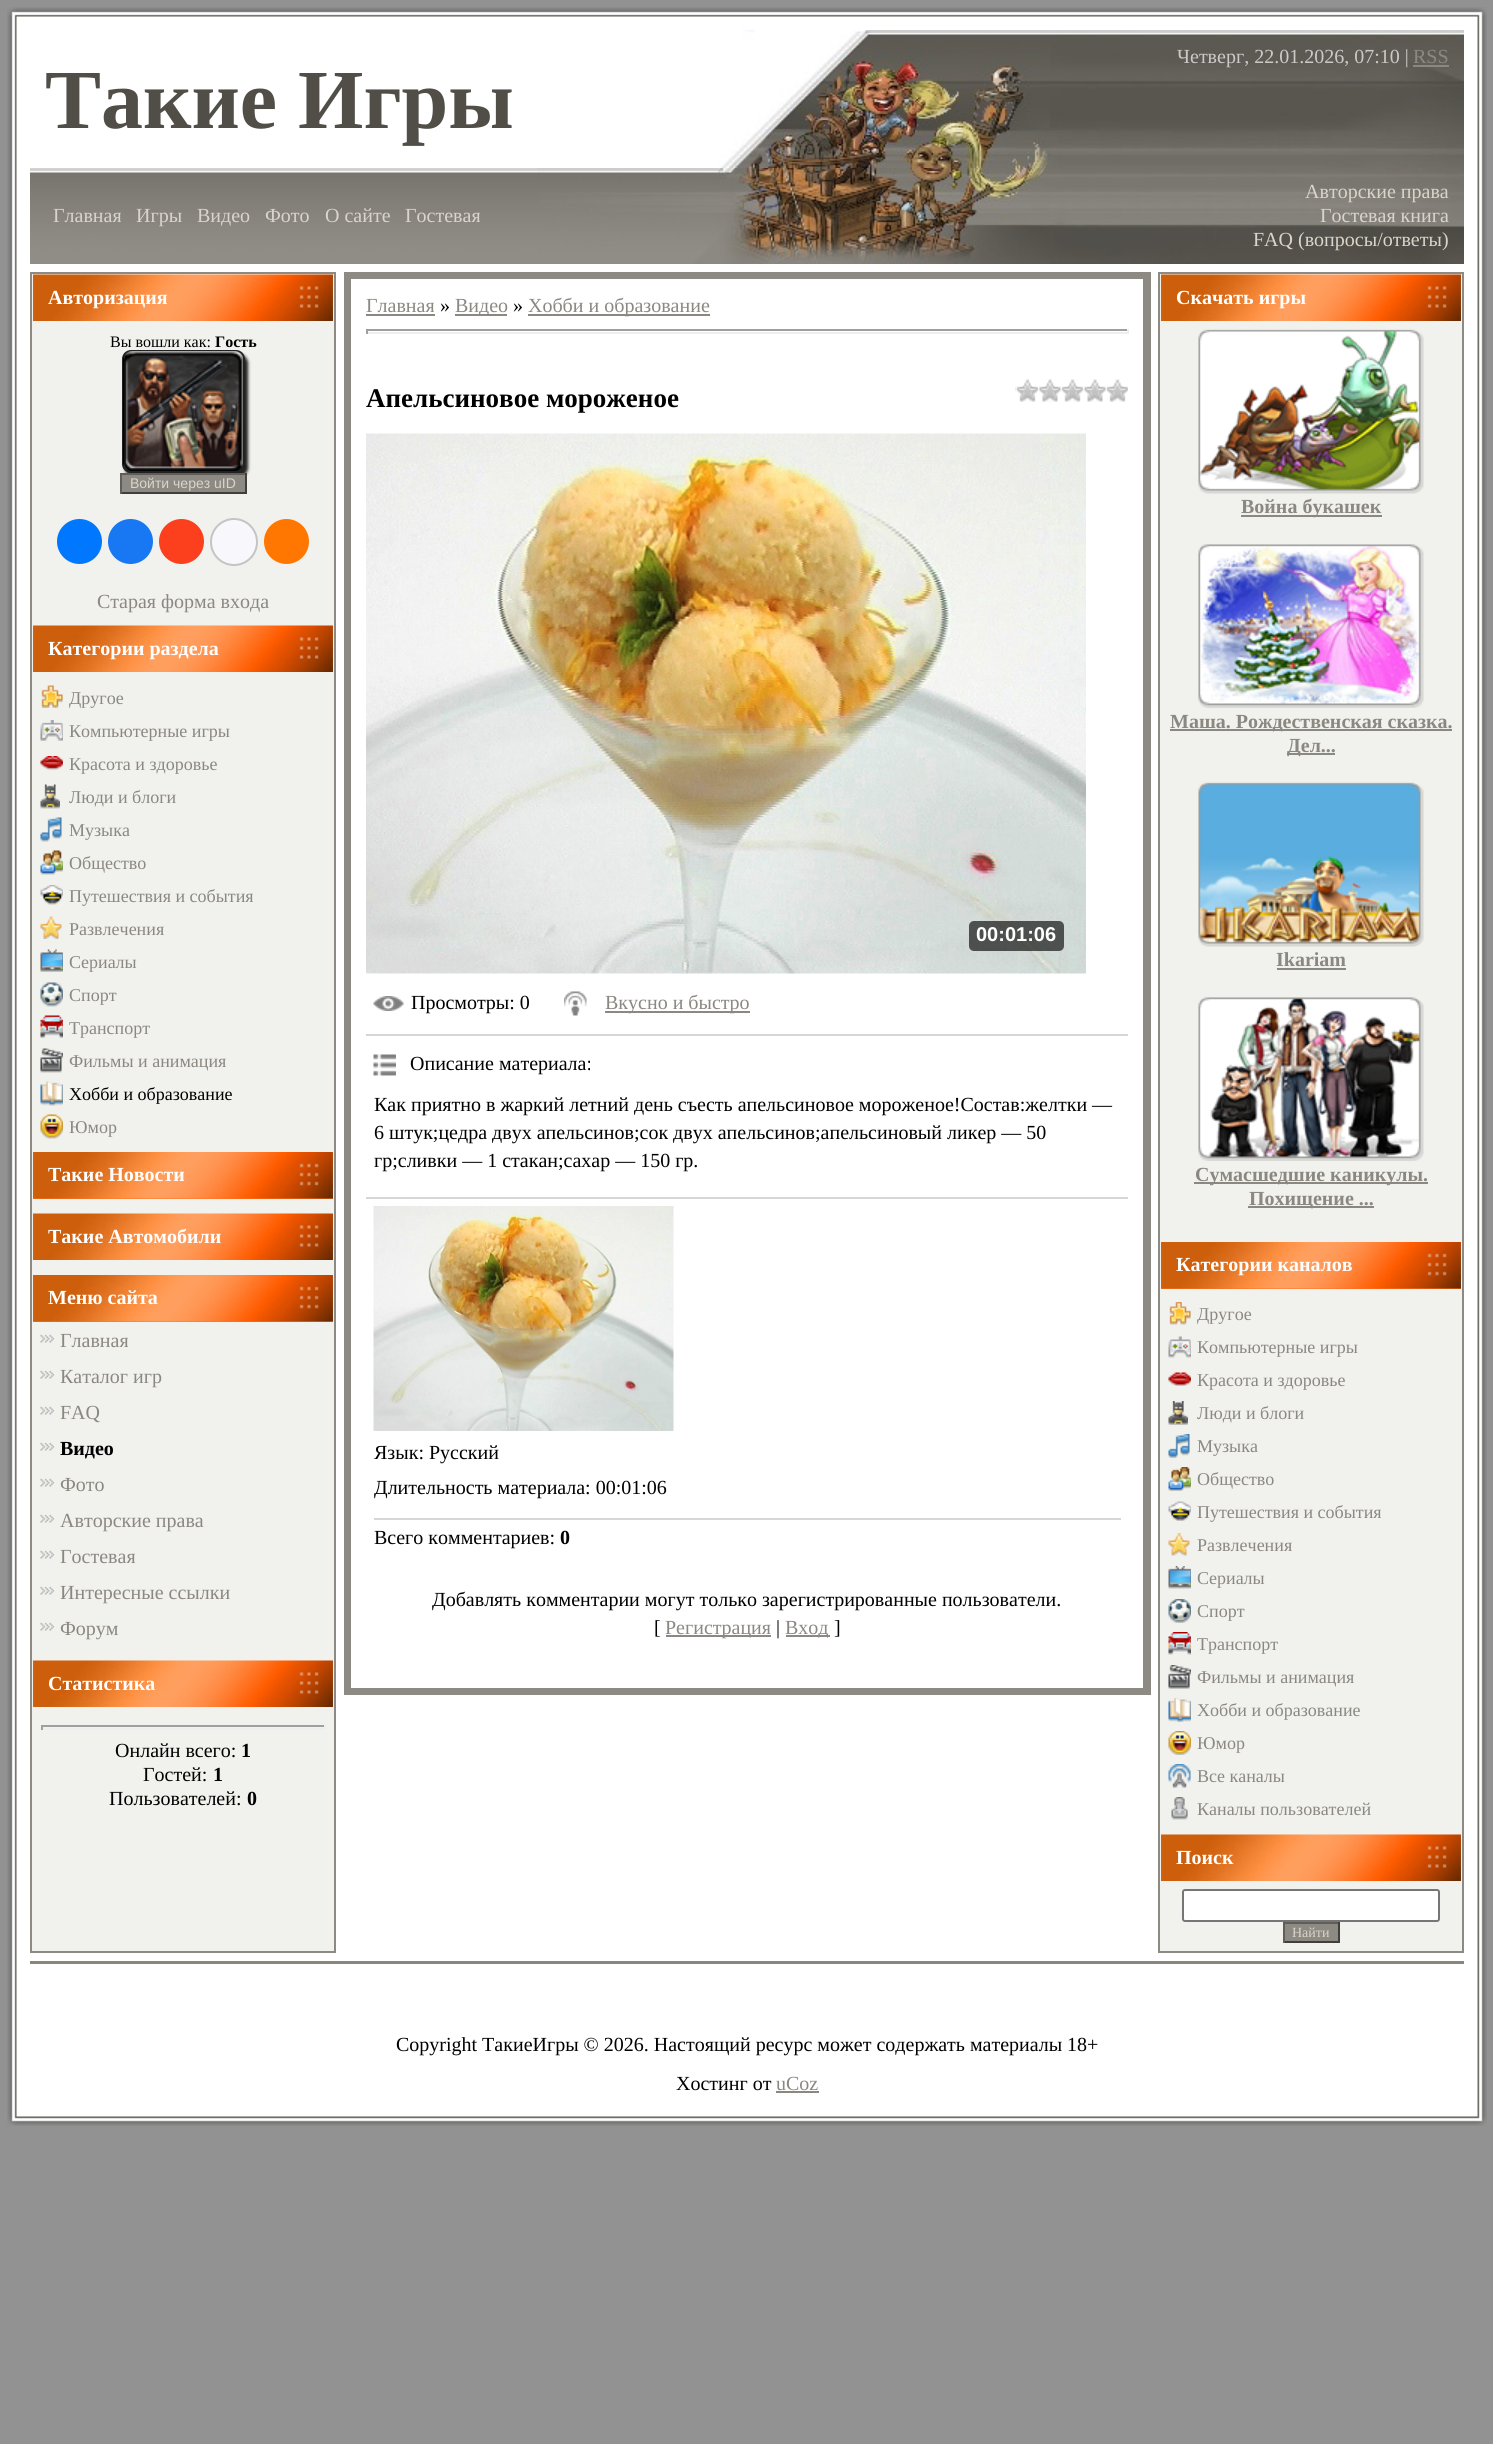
import math
import cairocffi as cairo

surface = cairo.ImageSurface(cairo.FORMAT_RGB24, 1493, 2444)
ctx = cairo.Context(surface)
options = cairo.FontOptions()
options.set_hint_metrics(cairo.HINT_METRICS_OFF)
options.set_hint_style(cairo.HINT_STYLE_NONE)
ctx.set_font_options(options)
ctx.set_miter_limit(4)


def rgb(r, g, b):
    ctx.set_source_rgb(r / 255, g / 255, b / 255)


def face(family, size, italic, bold):
    ctx.select_font_face(family, cairo.FONT_SLANT_ITALIC if italic else cairo.FONT_SLANT_NORMAL, cairo.FONT_WEIGHT_BOLD if bold else cairo.FONT_WEIGHT_NORMAL)
    ctx.set_font_size(size)


def label(x, y, s):
    ctx.move_to(x, y)
    ctx.show_text(s)


def rect(x, y, w, h):
    ctx.rectangle(x, y, w, h)
    ctx.fill()


def rrect(x, y, w, h, r):
    ctx.new_sub_path()
    for i, (u, v) in enumerate([(x + w - r, y + h - r), (x + r, y + h - r), (x + r, y + r), (x + w - r, y + r)]):
        ctx.arc(u, v, r, i * math.pi / 2, (i + 1) * math.pi / 2)
    ctx.close_path()


def soft_shadow(x, y, w, h, r, blur, alpha):
    ctx.push_group_with_content(cairo.CONTENT_ALPHA)
    ctx.set_operator(cairo.OPERATOR_SOURCE)
    for i in range(15, -16, -2):
        e = blur * i / 6
        if min(w, h) + 2 * e > 0:
            ctx.set_source_rgba(0, 0, 0, alpha * math.erfc((i - 1) / 8.5) / 2)
            rrect(x - e, y - e, w + 2 * e, h + 2 * e, max(0, min(r + e + blur * .6, min(w, h) / 2 + e)))
            ctx.fill()
    ctx.mask(ctx.pop_group())


def image(path, x, y, w, h):
    ctx.save()
    ctx.set_source_surface(cairo.ImageSurface.create_from_png(path), x, y)
    ctx.rectangle(x, y, w, h)
    ctx.fill()
    ctx.restore()


rgb(146, 146, 146)
ctx.paint()
image('image0.png', 7, 7, 23, 23)
image('image1.png', 30, 7, 1434, 23)
image('image2.png', 1464, 7, 23, 23)
image('image3.png', 7, 30, 23, 2073)
image('image4.png', 30, 168, 689, 96)
image('image5.png', 719, 30, 331, 138)
image('image6.png', 1050, 30, 414, 138)
face('Liberation Serif', 20, 0, 0)
rgb(203, 202, 200)
label(1177, 63, 'Четверг, 22.01.2026, 07:10 |')
rgb(139, 136, 129)
label(1413, 63, 'RSS')
rect(1413, 65, 36, 2)
rgb(255, 255, 255)
rect(30, 30, 689, 138)
face('Liberation Serif', 84, 0, 1)
rgb(81, 78, 72)
label(45, 128, 'Такие Игры')
image('image7.png', 537, 168, 182, 96)
face('Liberation Serif', 20, 0, 0)
rgb(218, 213, 202)
label(53, 222, 'Главная')
label(136, 222, 'Игры')
label(197, 222, 'Видео')
label(265, 222, 'Фото')
label(325, 222, 'О сайте')
label(405, 222, 'Гостевая')
image('image8.png', 718, 168, 332, 96)
image('image9.png', 1050, 168, 414, 96)
label(1305, 198, 'Авторские права')
label(1320, 222, 'Гостевая книга')
label(1253, 246, 'FAQ (вопросы/ответы)')
rgb(255, 255, 255)
rect(30, 264, 1434, 1697)
rgb(241, 241, 237)
ctx.rectangle(31, 273, 304, 1679)
ctx.fill_preserve()
rgb(140, 138, 130)
ctx.stroke()
image('image10.png', 33, 274, 300, 47)
face('Liberation Serif', 20, 0, 1)
rgb(255, 255, 255)
label(48, 304, 'Авторизация')
face('Liberation Serif', 16, 0, 0)
rgb(0, 0, 0)
label(110, 347, 'Вы вошли как:')
face('Liberation Serif', 16, 0, 1)
label(215, 347, 'Гость')
rgb(34, 34, 34)
soft_shadow(125, 354, 123, 123, 9, 1.5, 1)
rrect(123, 351, 121, 121, 8)
rgb(34, 34, 34)
ctx.stroke()
image('image11.png', 123, 351, 120, 120)
rgb(141, 138, 131)
rect(122, 475, 123, 17)
rgb(97, 94, 88)
rect(120, 473, 126, 2)
rgb(65, 63, 59)
rect(245, 473, 2, 21)
rect(120, 492, 126, 2)
rgb(97, 94, 88)
rect(120, 473, 2, 21)
face('Liberation Sans', 14, 0, 0)
rgb(218, 213, 202)
label(130, 488, 'Войти через uID')
rgb(0, 119, 255)
ctx.new_path()
ctx.arc(79.5, 541.5, 22.5, 0, 2 * math.pi)
ctx.fill()
rgb(24, 119, 242)
ctx.arc(130.5, 541.5, 22.5, 0, 2 * math.pi)
ctx.fill()
rgb(252, 63, 29)
ctx.arc(181.5, 541.5, 22.5, 0, 2 * math.pi)
ctx.fill()
rgb(248, 248, 252)
ctx.arc(234, 542, 23, 0, 2 * math.pi)
ctx.fill_preserve()
rgb(196, 196, 196)
ctx.stroke()
rgb(255, 119, 0)
ctx.arc(286.5, 541.5, 22.5, 0, 2 * math.pi)
ctx.fill()
face('Liberation Serif', 20, 0, 0)
rgb(139, 136, 129)
label(97, 608, 'Старая форма входа')
image('image10.png', 33, 625, 300, 47)
face('Liberation Serif', 20, 0, 1)
rgb(255, 255, 255)
label(48, 655, 'Категории раздела')
image('image12.png', 41, 685, 22, 23)
face('Liberation Serif', 18, 0, 0)
rgb(139, 136, 129)
label(69, 704, 'Другое')
image('image13.png', 40, 720, 23, 21)
label(69, 737, 'Компьютерные игры')
image('image14.png', 40, 756, 23, 14)
label(69, 770, 'Красота и здоровье')
image('image15.png', 40, 784, 20, 25)
label(69, 803, 'Люди и блоги')
image('image16.png', 40, 817, 22, 25)
label(69, 836, 'Музыка')
image('image17.png', 40, 850, 23, 25)
label(69, 869, 'Общество')
image('image18.png', 40, 885, 23, 20)
label(69, 902, 'Путешествия и события')
image('image19.png', 40, 916, 22, 23)
label(69, 935, 'Развлечения')
image('image20.png', 40, 949, 23, 23)
label(69, 968, 'Сериалы')
image('image21.png', 40, 982, 23, 25)
label(69, 1001, 'Спорт')
image('image22.png', 40, 1015, 23, 23)
label(69, 1034, 'Транспорт')
image('image23.png', 40, 1048, 23, 25)
label(69, 1067, 'Фильмы и анимация')
image('image24.png', 40, 1081, 23, 25)
rgb(0, 0, 0)
label(69, 1100, 'Хобби и образование')
image('image25.png', 40, 1114, 23, 25)
rgb(139, 136, 129)
label(69, 1133, 'Юмор')
rgb(255, 116, 35)
rect(33, 1198, 300, 1)
image('image26.png', 33, 1152, 300, 47)
face('Liberation Serif', 20, 0, 1)
rgb(255, 255, 255)
label(48, 1181, 'Такие Новости')
image('image10.png', 33, 1213, 300, 47)
label(48, 1243, 'Такие Автомобили')
rgb(255, 116, 35)
rect(33, 1321, 300, 1)
image('image26.png', 33, 1275, 300, 47)
rgb(255, 255, 255)
label(48, 1304, 'Меню сайта')
image('image27.png', 40, 1334, 14, 9)
face('Liberation Serif', 20, 0, 0)
rgb(139, 136, 129)
label(60, 1347, 'Главная')
image('image27.png', 40, 1370, 14, 9)
label(60, 1383, 'Каталог игр')
image('image27.png', 40, 1406, 14, 9)
label(60, 1419, 'FAQ')
image('image27.png', 40, 1442, 14, 9)
face('Liberation Serif', 20, 0, 1)
rgb(0, 0, 0)
label(60, 1455, 'Видео')
image('image27.png', 40, 1478, 14, 9)
face('Liberation Serif', 20, 0, 0)
rgb(139, 136, 129)
label(60, 1491, 'Фото')
image('image27.png', 40, 1514, 14, 9)
label(60, 1527, 'Авторские права')
image('image27.png', 40, 1550, 14, 9)
label(60, 1563, 'Гостевая')
image('image27.png', 40, 1586, 14, 9)
label(60, 1599, 'Интересные ссылки')
image('image27.png', 40, 1622, 14, 9)
label(60, 1635, 'Форум')
image('image10.png', 33, 1660, 300, 47)
face('Liberation Serif', 20, 0, 1)
rgb(255, 255, 255)
label(48, 1690, 'Статистика')
rgb(159, 159, 159)
rect(41, 1725, 285, 2)
rgb(238, 238, 238)
rect(324, 1725, 2, 5)
rect(41, 1728, 285, 2)
rgb(159, 159, 159)
rect(41, 1725, 2, 5)
face('Liberation Serif', 20, 0, 0)
rgb(0, 0, 0)
label(115, 1757, 'Онлайн всего:')
face('Liberation Serif', 20, 0, 1)
label(241, 1757, '1')
face('Liberation Serif', 20, 0, 0)
label(143, 1781, 'Гостей:')
face('Liberation Serif', 20, 0, 1)
label(213, 1781, '1')
face('Liberation Serif', 20, 0, 0)
label(109, 1805, 'Пользователей:')
face('Liberation Serif', 20, 0, 1)
label(247, 1805, '0')
ctx.rectangle(348, 276, 799, 1415)
rgb(140, 138, 130)
ctx.set_line_width(8)
ctx.stroke()
rgb(255, 255, 255)
rect(351, 279, 792, 1409)
face('Liberation Serif', 20, 0, 0)
rgb(139, 136, 129)
label(366, 312, 'Главная')
rect(366, 314, 69, 2)
rgb(0, 0, 0)
label(440, 312, '»')
rgb(139, 136, 129)
rect(455, 314, 52, 2)
label(455, 312, 'Видео')
rgb(0, 0, 0)
label(513, 312, '»')
rgb(139, 136, 129)
rect(528, 314, 182, 2)
label(528, 312, 'Хобби и образование')
rgb(159, 159, 159)
rect(366, 329, 762, 2)
rgb(238, 238, 238)
rect(1127, 329, 2, 5)
rect(366, 332, 762, 2)
rgb(159, 159, 159)
rect(366, 329, 2, 5)
face('Liberation Serif', 27, 0, 1)
rgb(0, 0, 0)
label(366, 407, 'Апельсиновое мороженое')
image('image28.png', 1015, 379, 113, 23)
image('image29.png', 366, 433, 720, 541)
ctx.set_source_rgba(0, 0, 0, 0.63)
rrect(969, 921, 95, 30, 5)
ctx.fill()
face('Liberation Sans', 20, 0, 1)
rgb(255, 255, 255)
label(976, 941, '00:01:06')
image('image30.png', 373, 996, 31, 15)
face('Liberation Serif', 20, 0, 0)
rgb(0, 0, 0)
label(411, 1009, 'Просмотры: 0')
image('image31.png', 564, 991, 23, 25)
rgb(139, 136, 129)
rect(605, 1011, 145, 2)
label(605, 1009, 'Вкусно и быстро')
rgb(214, 214, 214)
rect(366, 1034, 762, 2)
image('image32.png', 373, 1054, 23, 22)
rgb(0, 0, 0)
label(410, 1070, 'Описание материала:')
label(374, 1111, 'Как приятно в жаркий летний день съесть апельсиновое мороженое!Состав:желтки —')
label(374, 1139, '6 штук;цедра двух апельсинов;сок двух апельсинов;апельсиновый ликер — 50')
label(374, 1167, 'гр;сливки — 1 стакан;сахар — 150 гр.')
rgb(214, 214, 214)
rect(366, 1197, 762, 2)
image('image33.png', 373, 1206, 301, 225)
rgb(0, 0, 0)
label(374, 1459, 'Язык: Русский')
label(374, 1494, 'Длительность материала: 00:01:06')
rgb(214, 214, 214)
rect(374, 1518, 747, 2)
rgb(0, 0, 0)
label(374, 1544, 'Всего комментариев:')
face('Liberation Serif', 20, 0, 1)
label(560, 1544, '0')
face('Liberation Serif', 20, 0, 0)
label(432, 1606, 'Добавлять комментарии могут только зарегистрированные пользователи.')
label(654, 1634, '[')
rgb(139, 136, 129)
rect(666, 1635, 105, 2)
label(665, 1634, 'Регистрация')
rgb(0, 0, 0)
label(776, 1634, '|')
rgb(139, 136, 129)
rect(786, 1635, 44, 2)
label(785, 1634, 'Вход')
rgb(0, 0, 0)
label(834, 1634, ']')
rgb(241, 241, 237)
ctx.rectangle(1159, 273, 304, 1679)
ctx.fill_preserve()
rgb(140, 138, 130)
ctx.set_line_width(2)
ctx.stroke()
image('image34.png', 1161, 274, 300, 47)
face('Liberation Serif', 20, 0, 1)
rgb(255, 255, 255)
label(1176, 304, 'Скачать игры')
image('image35.png', 1198, 329, 226, 165)
rgb(139, 136, 129)
rect(1241, 515, 141, 2)
label(1241, 513, 'Война букашек')
image('image36.png', 1198, 544, 226, 164)
rect(1170, 729, 282, 2)
label(1170, 728, 'Маша. Рождественская сказка.')
rect(1287, 753, 48, 2)
label(1287, 752, 'Дел...')
image('image37.png', 1198, 782, 226, 165)
label(1276, 966, 'Ikariam')
rect(1277, 968, 69, 2)
image('image38.png', 1198, 997, 226, 164)
rect(1194, 1182, 234, 2)
label(1195, 1181, 'Сумасшедшие каникулы.')
rect(1248, 1206, 126, 2)
label(1249, 1205, 'Похищение ...')
rgb(255, 116, 35)
rect(1161, 1288, 300, 1)
image('image39.png', 1161, 1242, 300, 47)
rgb(255, 255, 255)
label(1176, 1271, 'Категории каналов')
image('image40.png', 1169, 1302, 22, 23)
face('Liberation Serif', 18, 0, 0)
rgb(139, 136, 129)
label(1197, 1320, 'Другое')
image('image41.png', 1168, 1336, 23, 22)
label(1197, 1353, 'Компьютерные игры')
image('image42.png', 1168, 1372, 23, 14)
label(1197, 1386, 'Красота и здоровье')
image('image43.png', 1168, 1401, 20, 24)
label(1197, 1419, 'Люди и блоги')
image('image44.png', 1168, 1434, 22, 24)
label(1197, 1452, 'Музыка')
image('image45.png', 1168, 1467, 23, 24)
label(1197, 1485, 'Общество')
image('image46.png', 1168, 1501, 23, 20)
label(1197, 1518, 'Путешествия и события')
image('image47.png', 1168, 1533, 22, 23)
label(1197, 1551, 'Развлечения')
image('image48.png', 1168, 1566, 23, 23)
label(1197, 1584, 'Сериалы')
image('image49.png', 1168, 1599, 23, 24)
label(1197, 1617, 'Спорт')
image('image50.png', 1168, 1632, 23, 23)
label(1197, 1650, 'Транспорт')
image('image51.png', 1168, 1665, 23, 24)
label(1197, 1683, 'Фильмы и анимация')
image('image52.png', 1168, 1698, 23, 24)
label(1197, 1716, 'Хобби и образование')
image('image53.png', 1168, 1731, 23, 24)
label(1197, 1749, 'Юмор')
image('image54.png', 1168, 1764, 23, 24)
label(1197, 1782, 'Все каналы')
image('image55.png', 1171, 1797, 17, 23)
label(1197, 1815, 'Каналы пользователей')
image('image34.png', 1161, 1834, 300, 47)
face('Liberation Serif', 20, 0, 1)
rgb(255, 255, 255)
label(1176, 1864, 'Поиск')
rrect(1183, 1890, 256, 31, 2)
ctx.fill_preserve()
rgb(118, 118, 118)
ctx.stroke()
rgb(141, 138, 131)
rect(1285, 1924, 53, 17)
rgb(97, 94, 88)
rect(1283, 1922, 57, 2)
rgb(65, 63, 59)
rect(1338, 1922, 2, 21)
rect(1283, 1941, 57, 2)
rgb(97, 94, 88)
rect(1283, 1922, 2, 21)
face('Liberation Serif', 14, 0, 0)
rgb(218, 213, 202)
label(1292, 1937, 'Найти')
rgb(137, 134, 128)
rect(30, 1961, 1434, 3)
rgb(255, 255, 255)
rect(30, 1964, 1434, 139)
face('Liberation Serif', 20, 0, 0)
rgb(0, 0, 0)
label(396, 2051, 'Copyright ТакиеИгры © 2026. Настоящий ресурс может содержать материалы 18+')
label(676, 2090, 'Хостинг от')
rgb(139, 136, 129)
label(776, 2090, 'uCoz')
rect(776, 2091, 43, 2)
image('image56.png', 1464, 30, 23, 2073)
image('image57.png', 7, 2103, 23, 23)
image('image58.png', 30, 2103, 1434, 23)
image('image59.png', 1464, 2103, 23, 23)
surface.write_to_png('render.png')
